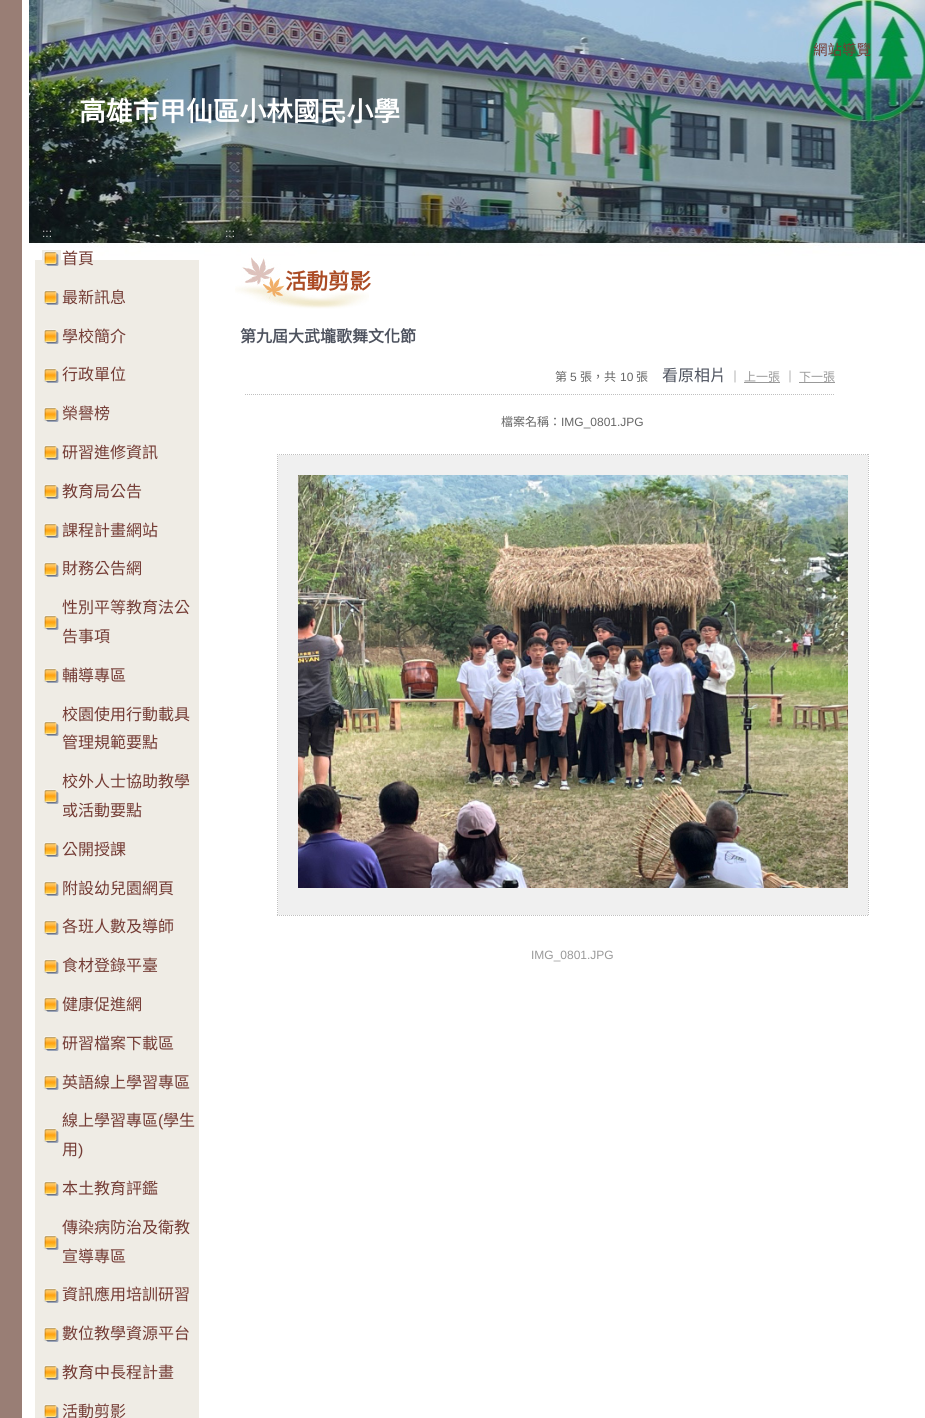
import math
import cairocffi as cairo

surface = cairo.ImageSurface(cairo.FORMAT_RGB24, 925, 1418)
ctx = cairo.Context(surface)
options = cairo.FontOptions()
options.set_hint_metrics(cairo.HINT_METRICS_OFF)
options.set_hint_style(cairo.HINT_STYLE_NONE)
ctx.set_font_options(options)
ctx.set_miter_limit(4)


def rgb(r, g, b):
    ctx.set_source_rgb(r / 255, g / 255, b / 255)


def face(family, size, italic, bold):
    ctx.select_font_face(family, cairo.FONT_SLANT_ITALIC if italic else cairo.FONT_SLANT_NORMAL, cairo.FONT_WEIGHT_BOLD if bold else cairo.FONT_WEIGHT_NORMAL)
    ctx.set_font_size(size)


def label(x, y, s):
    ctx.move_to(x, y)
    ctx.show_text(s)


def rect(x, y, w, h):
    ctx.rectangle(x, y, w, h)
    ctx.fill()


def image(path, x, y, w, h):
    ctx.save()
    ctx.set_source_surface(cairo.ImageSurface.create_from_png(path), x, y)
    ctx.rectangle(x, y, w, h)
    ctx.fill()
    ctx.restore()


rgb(153, 126, 117)
ctx.paint()
image('image0.png', 22, 0, 903, 1418)
image('image1.png', 29, 0, 896, 260)
face('Noto Sans CJK TC', 14.5, 0, 0)
rgb(116, 60, 53)
label(813, 55, '網站導覽')
face('Noto Sans CJK TC', 26.75, 0, 1)
rgb(255, 255, 255)
label(79, 121, '高雄市甲仙區小林國民小學')
face('Liberation Sans', 12, 0, 0)
rgb(204, 204, 204)
label(42, 237, ':::')
image('image2.png', 42, 250, 19, 16)
face('Noto Sans CJK TC', 16, 0, 0)
rgb(116, 60, 53)
label(62, 264, '首頁')
image('image3.png', 43, 290, 16, 15)
label(62, 303, '最新訊息')
image('image3.png', 43, 329, 16, 15)
label(62, 342, '學校簡介')
image('image3.png', 43, 368, 16, 15)
label(62, 380, '行政單位')
image('image3.png', 43, 407, 16, 15)
label(62, 419, '榮譽榜')
image('image3.png', 43, 445, 16, 15)
label(62, 458, '研習進修資訊')
image('image3.png', 43, 484, 16, 15)
label(62, 497, '教育局公告')
image('image3.png', 43, 523, 16, 15)
label(62, 536, '課程計畫網站')
image('image3.png', 43, 562, 16, 15)
label(62, 574, '財務公告網')
image('image3.png', 43, 615, 16, 15)
label(62, 613, '性別平等教育法公')
label(62, 642, '告事項')
image('image3.png', 43, 668, 16, 15)
label(62, 681, '輔導專區')
image('image3.png', 43, 721, 16, 15)
label(62, 720, '校園使用行動載具')
label(62, 748, '管理規範要點')
image('image3.png', 43, 789, 16, 15)
label(62, 787, '校外人士協助教學')
label(62, 816, '或活動要點')
image('image3.png', 43, 842, 16, 15)
label(62, 855, '公開授課')
image('image3.png', 43, 881, 16, 15)
label(62, 894, '附設幼兒園網頁')
image('image3.png', 43, 920, 16, 15)
label(62, 932, '各班人數及導師')
image('image3.png', 43, 959, 16, 15)
label(62, 971, '食材登錄平臺')
image('image3.png', 43, 997, 16, 15)
label(62, 1010, '健康促進網')
image('image3.png', 43, 1036, 16, 15)
label(62, 1049, '研習檔案下載區')
image('image3.png', 43, 1075, 16, 15)
label(62, 1088, '英語線上學習專區')
image('image3.png', 43, 1128, 16, 15)
label(62, 1126, '線上學習專區')
face('Liberation Sans', 16, 0, 0)
label(158, 1126, '(')
face('Noto Sans CJK TC', 16, 0, 0)
label(163, 1126, '學生')
label(62, 1155, '用')
face('Liberation Sans', 16, 0, 0)
label(78, 1155, ')')
image('image3.png', 43, 1181, 16, 15)
face('Noto Sans CJK TC', 16, 0, 0)
label(62, 1194, '本土教育評鑑')
image('image3.png', 43, 1235, 16, 15)
label(62, 1233, '傳染病防治及衛教')
label(62, 1262, '宣導專區')
image('image3.png', 43, 1288, 16, 15)
label(62, 1300, '資訊應用培訓研習')
image('image3.png', 43, 1327, 16, 15)
label(62, 1339, '數位教學資源平台')
image('image3.png', 43, 1365, 16, 15)
label(62, 1378, '教育中長程計畫')
image('image4.png', 43, 1404, 16, 14)
label(62, 1417, '活動剪影')
face('Liberation Sans', 12, 0, 0)
rgb(204, 204, 204)
label(225, 237, ':::')
image('image5.png', 235, 257, 134, 52)
face('Noto Sans CJK TC', 21.5, 0, 1)
rgb(171, 75, 36)
label(285, 289, '活動剪影')
face('Noto Sans CJK TC', 16, 0, 1)
rgb(77, 82, 94)
label(240, 342, '第九屆大武壠歌舞文化節')
ctx.new_path()
ctx.move_to(245, 394.5)
ctx.line_to(835, 394.5)
rgb(192, 192, 192)
ctx.set_line_width(1)
ctx.set_dash([1, 1])
ctx.stroke()
face('Noto Sans CJK TC', 12, 0, 0)
rgb(102, 102, 102)
label(555, 381, '第')
face('Liberation Sans', 12, 0, 0)
label(570, 381, '5')
face('Noto Sans CJK TC', 12, 0, 0)
label(580, 381, '張，共')
face('Liberation Sans', 12, 0, 0)
label(620, 381, '10')
face('Noto Sans CJK TC', 12, 0, 0)
label(636, 381, '張')
face('Noto Sans CJK TC', 16, 0, 0)
rgb(77, 82, 94)
label(662, 381, '看原相片')
face('Noto Sans CJK TC', 12, 0, 0)
rgb(102, 102, 102)
label(729, 381, '｜')
rgb(153, 153, 153)
label(744, 381, '上一張')
rect(744, 382, 36, 1)
rgb(102, 102, 102)
label(784, 381, '｜')
rgb(153, 153, 153)
label(799, 381, '下一張')
rect(799, 382, 36, 1)
rgb(102, 102, 102)
label(501, 426, '檔案名稱：')
face('Liberation Sans', 12, 0, 0)
label(561, 426, 'IMG_0801.JPG')
ctx.new_path()
ctx.move_to(277, 454.5)
ctx.line_to(869, 454.5)
rgb(192, 192, 192)
ctx.stroke()
ctx.new_path()
ctx.move_to(868.5, 454)
ctx.line_to(868.5, 916)
ctx.stroke()
ctx.new_path()
ctx.move_to(277, 915.5)
ctx.line_to(869, 915.5)
ctx.stroke()
ctx.new_path()
ctx.move_to(277.5, 454)
ctx.line_to(277.5, 916)
ctx.stroke()
rgb(240, 240, 240)
rect(278, 455, 590, 460)
image('image6.png', 298, 475, 550, 413)
rgb(153, 153, 153)
label(531, 959, 'IMG_0801.JPG')
surface.write_to_png('render.png')
